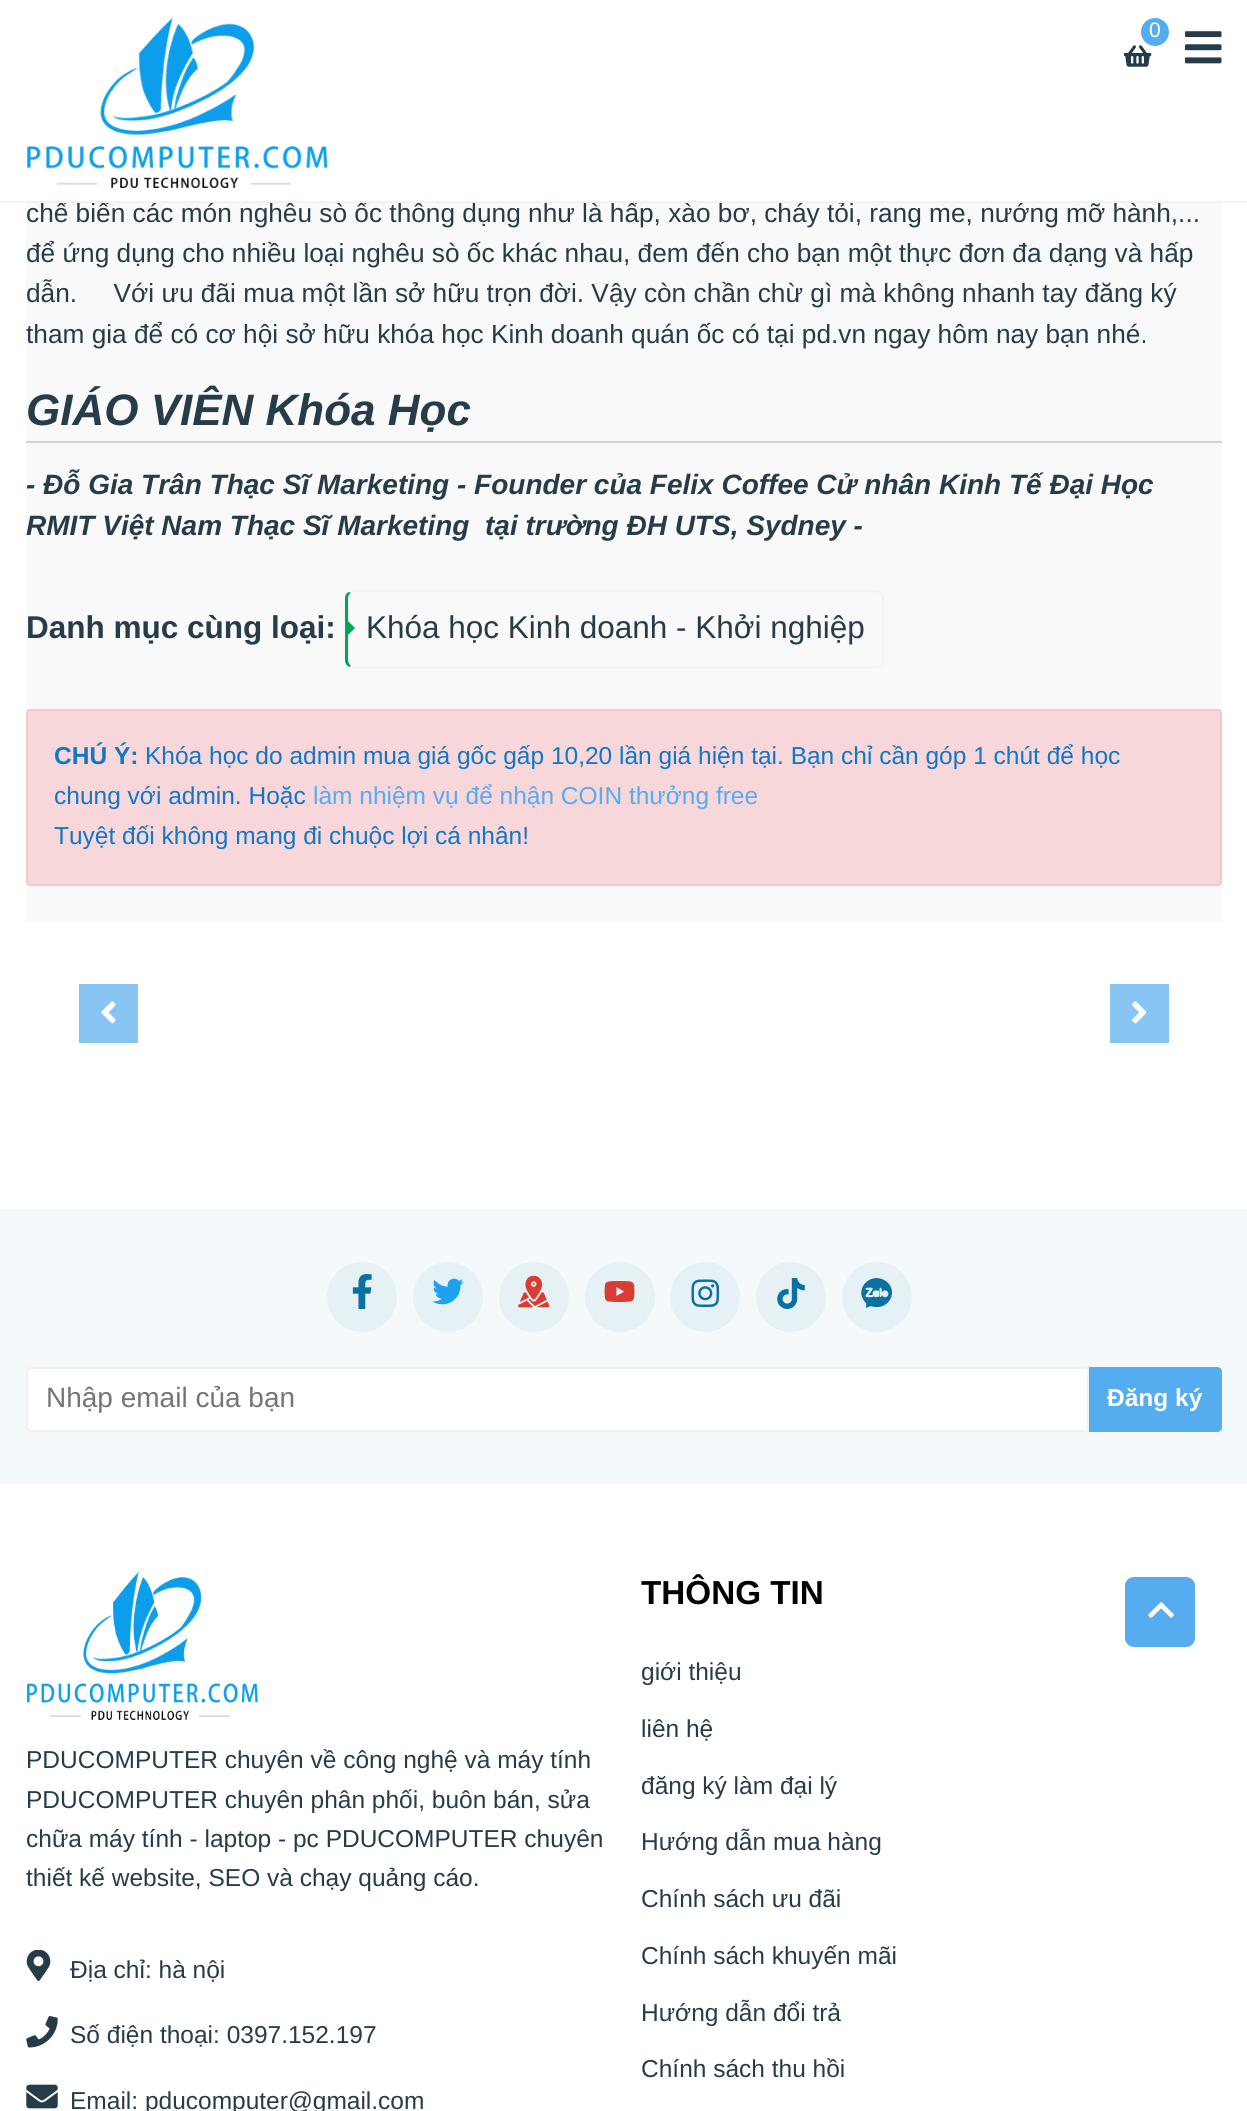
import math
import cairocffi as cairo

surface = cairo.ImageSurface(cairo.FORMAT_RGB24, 1247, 2111)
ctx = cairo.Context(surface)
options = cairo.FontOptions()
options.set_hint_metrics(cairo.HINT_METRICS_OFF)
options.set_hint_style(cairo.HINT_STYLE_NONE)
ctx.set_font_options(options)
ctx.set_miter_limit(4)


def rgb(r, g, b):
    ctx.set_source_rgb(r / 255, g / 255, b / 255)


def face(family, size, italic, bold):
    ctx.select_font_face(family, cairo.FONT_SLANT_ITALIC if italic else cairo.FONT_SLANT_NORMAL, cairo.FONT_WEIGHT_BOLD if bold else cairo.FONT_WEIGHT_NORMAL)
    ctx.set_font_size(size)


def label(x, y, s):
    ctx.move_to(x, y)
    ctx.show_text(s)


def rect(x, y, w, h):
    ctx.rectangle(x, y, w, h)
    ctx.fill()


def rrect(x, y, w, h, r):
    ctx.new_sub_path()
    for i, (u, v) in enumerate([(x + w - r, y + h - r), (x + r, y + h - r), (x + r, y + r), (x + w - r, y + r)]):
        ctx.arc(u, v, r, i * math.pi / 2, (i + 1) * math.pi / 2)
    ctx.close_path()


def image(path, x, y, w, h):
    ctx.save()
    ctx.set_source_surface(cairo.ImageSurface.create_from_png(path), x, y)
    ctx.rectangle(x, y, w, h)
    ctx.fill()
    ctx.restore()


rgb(255, 255, 255)
ctx.paint()
rgb(249, 249, 249)
rect(26, 203, 1196, 718)
face('Liberation Sans', 26.25, 0, 0)
rgb(38, 60, 73)
label(26, 222, 'chế biến các món nghêu sò ốc thông dụng như là hấp, xào bơ, cháy tỏi, rang me, nướng mỡ hành,...')
rgb(241, 241, 241)
rect(0, 201, 1247, 2)
image('image0.png', 27, 17, 301, 171)
image('image1.png', 1124, 45, 28, 22)
rgb(85, 172, 238)
ctx.arc(1155, 32, 14, 0, 2 * math.pi)
ctx.fill()
face('Liberation Sans', 21, 0, 0)
rgb(255, 255, 255)
label(1149, 37, '0')
image('image2.png', 1185, 31, 37, 33)
face('Liberation Sans', 26.25, 0, 0)
rgb(38, 60, 73)
label(26, 262, 'để ứng dụng cho nhiều loại nghêu sò ốc khác nhau, đem đến cho bạn một thực đơn đa dạng và hấp')
label(26, 302, 'dẫn.     Với ưu đãi mua một lần sở hữu trọn đời. Vậy còn chần chừ gì mà không nhanh tay đăng ký')
label(26, 343, 'tham gia để có cơ hội sở hữu khóa học Kinh doanh quán ốc có tại pd.vn ngay hôm nay bạn nhé.')
rgb(214, 206, 206)
rect(26, 441, 1196, 2)
face('Liberation Sans', 44, 1, 1)
rgb(38, 60, 73)
label(26, 425, 'GIÁO VIÊN Khóa Học')
face('Liberation Sans', 28, 1, 1)
label(26, 494, '- Đỗ Gia Trân Thạc Sĩ Marketing - Founder của Felix Coffee Cử nhân Kinh Tế Đại Học')
label(26, 535, 'RMIT Việt Nam Thạc Sĩ Marketing  tại trường ĐH UTS, Sydney -')
face('Liberation Sans', 31.5, 0, 1)
label(26, 638, 'Danh mục cùng loại:')
rgb(243, 243, 243)
ctx.new_path()
ctx.move_to(354, 590)
ctx.curve_to(352, 590, 350, 591, 349, 592)
ctx.line_to(351, 593)
ctx.line_to(354, 592)
ctx.line_to(875, 592)
ctx.curve_to(877, 592, 879, 593, 880, 594)
ctx.line_to(881, 592)
ctx.curve_to(880, 591, 877, 590, 875, 590)
ctx.close_path()
ctx.fill()
ctx.new_path()
ctx.move_to(881, 592)
ctx.line_to(884, 596)
ctx.line_to(884, 662)
ctx.curve_to(884, 663, 882, 665, 881, 666)
ctx.line_to(880, 665)
ctx.curve_to(881, 664, 882, 662, 882, 660)
ctx.line_to(882, 598)
ctx.curve_to(882, 596, 881, 595, 880, 594)
ctx.close_path()
ctx.fill()
ctx.new_path()
ctx.move_to(881, 666)
ctx.curve_to(880, 667, 877, 668, 875, 668)
ctx.line_to(354, 668)
ctx.curve_to(352, 668, 350, 668, 349, 667)
ctx.line_to(351, 666)
ctx.line_to(354, 667)
ctx.line_to(875, 667)
ctx.curve_to(877, 667, 879, 666, 880, 665)
ctx.close_path()
ctx.fill()
rgb(0, 166, 81)
ctx.new_path()
ctx.move_to(349, 592)
ctx.curve_to(346, 593, 345, 596, 345, 598)
ctx.line_to(345, 660)
ctx.curve_to(345, 663, 346, 665, 349, 667)
ctx.line_to(351, 666)
ctx.curve_to(349, 664, 348, 662, 348, 660)
ctx.line_to(348, 598)
ctx.curve_to(348, 596, 349, 594, 351, 593)
ctx.close_path()
ctx.fill()
ctx.new_path()
ctx.move_to(348, 635)
ctx.line_to(348, 621)
ctx.line_to(355, 628)
ctx.close_path()
ctx.fill()
face('Liberation Sans', 31.5, 0, 0)
rgb(38, 60, 73)
label(366, 638, 'Khóa học Kinh doanh - Khởi nghiệp')
rgb(248, 215, 218)
rrect(27, 710, 1194, 175, 3)
ctx.fill_preserve()
rgb(245, 198, 203)
ctx.stroke()
face('Liberation Sans', 24.5, 0, 1)
rgb(16, 119, 197)
label(54, 764, 'CHÚ Ý:')
face('Liberation Sans', 24.5, 0, 0)
label(145, 764, 'Khóa học do admin mua giá gốc gấp 10,20 lần giá hiện tại. Bạn chỉ cần góp 1 chút để học')
label(54, 804, 'chung với admin. Hoặc')
rgb(85, 172, 238)
label(313, 804, 'làm nhiệm vụ để nhận COIN thưởng free')
rgb(16, 119, 197)
label(54, 844, 'Tuyệt đối không mang đi chuộc lợi cá nhân!')
rgb(136, 197, 243)
rect(79, 984, 59, 59)
image('image3.png', 101, 1001, 15, 23)
rect(1110, 984, 59, 59)
image('image4.png', 1132, 1001, 15, 23)
rgb(244, 249, 252)
rect(0, 1209, 1247, 275)
rgb(230, 241, 246)
ctx.arc(362, 1297, 35, 0, 2 * math.pi)
ctx.fill()
image('image5.png', 352, 1274, 20, 35)
ctx.arc(448, 1297, 35, 0, 2 * math.pi)
ctx.fill()
image('image6.png', 432, 1278, 32, 27)
ctx.arc(534, 1297, 35, 0, 2 * math.pi)
ctx.fill()
image('image7.png', 518, 1275, 32, 33)
ctx.arc(620, 1297, 35, 0, 2 * math.pi)
ctx.fill()
image('image8.png', 604, 1281, 31, 21)
ctx.arc(705, 1297, 35, 0, 2 * math.pi)
ctx.fill()
image('image9.png', 691, 1279, 29, 28)
ctx.arc(791, 1297, 35, 0, 2 * math.pi)
ctx.fill()
image('image10.png', 777, 1278, 28, 31)
ctx.arc(877, 1297, 35, 0, 2 * math.pi)
ctx.fill()
image('image11.png', 861, 1278, 32, 30)
rgb(255, 255, 255)
ctx.new_path()
ctx.move_to(31, 1368)
ctx.line_to(1088, 1368)
ctx.line_to(1088, 1431)
ctx.line_to(31, 1431)
ctx.curve_to(29, 1431, 27, 1429, 27, 1427)
ctx.line_to(27, 1372)
ctx.curve_to(27, 1370, 29, 1368, 31, 1368)
ctx.close_path()
ctx.fill_preserve()
rgb(241, 241, 241)
ctx.stroke()
face('Liberation Sans', 28, 0, 0)
rgb(117, 117, 117)
label(46, 1407, 'Nhập email của bạn')
rgb(85, 172, 238)
ctx.new_path()
ctx.move_to(1089, 1367)
ctx.line_to(1217, 1367)
ctx.curve_to(1220, 1367, 1222, 1369, 1222, 1372)
ctx.line_to(1222, 1427)
ctx.curve_to(1222, 1430, 1220, 1432, 1217, 1432)
ctx.line_to(1089, 1432)
ctx.close_path()
ctx.fill()
face('Liberation Sans', 24.5, 0, 1)
rgb(255, 255, 255)
label(1107, 1406, 'Đăng ký')
image('image12.png', 27, 1571, 231, 149)
face('Liberation Sans', 24.5, 0, 0)
rgb(38, 60, 73)
label(26, 1768, 'PDUCOMPUTER chuyên về công nghệ và máy tính')
label(26, 1808, 'PDUCOMPUTER chuyên phân phối, buôn bán, sửa')
label(26, 1847, 'chữa máy tính - laptop - pc PDUCOMPUTER chuyên')
label(26, 1886, 'thiết kế website, SEO và chạy quảng cáo.')
image('image13.png', 26, 1950, 25, 31)
label(70, 1978, 'Địa chỉ: hà nội')
image('image14.png', 26, 2016, 32, 32)
label(70, 2043, 'Số điện thoại: 0397.152.197')
image('image15.png', 26, 2084, 32, 25)
label(70, 2109, 'Email: pducomputer@gmail.com')
face('Liberation Sans', 33.25, 0, 1)
rgb(0, 0, 0)
label(641, 1604, 'THÔNG TIN')
face('Liberation Sans', 24.5, 0, 0)
rgb(38, 60, 73)
label(641, 1680, 'giới thiệu')
label(641, 1737, 'liên hệ')
label(641, 1794, 'đăng ký làm đại lý')
label(641, 1850, 'Hướng dẫn mua hàng')
label(641, 1907, 'Chính sách ưu đãi')
label(641, 1964, 'Chính sách khuyến mãi')
label(641, 2021, 'Hướng dẫn đổi trả')
label(641, 2077, 'Chính sách thu hồi')
rgb(85, 172, 238)
rrect(1125, 1577, 70, 70, 9)
ctx.fill()
image('image16.png', 1148, 1602, 26, 16)
surface.write_to_png('render.png')
